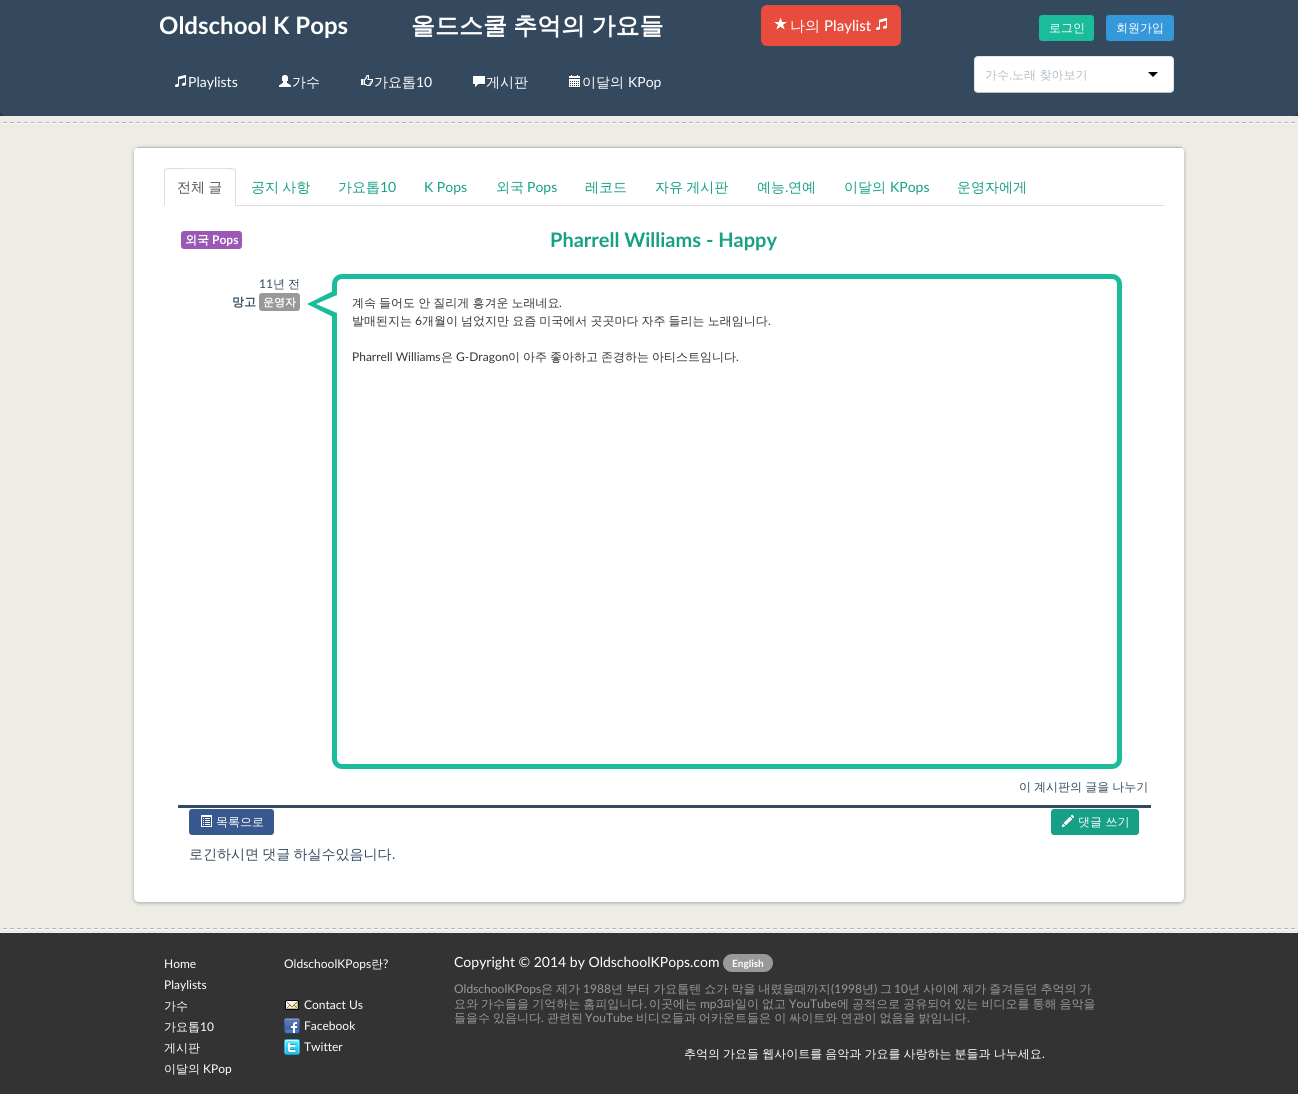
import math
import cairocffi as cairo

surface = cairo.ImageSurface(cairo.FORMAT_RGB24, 1298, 1094)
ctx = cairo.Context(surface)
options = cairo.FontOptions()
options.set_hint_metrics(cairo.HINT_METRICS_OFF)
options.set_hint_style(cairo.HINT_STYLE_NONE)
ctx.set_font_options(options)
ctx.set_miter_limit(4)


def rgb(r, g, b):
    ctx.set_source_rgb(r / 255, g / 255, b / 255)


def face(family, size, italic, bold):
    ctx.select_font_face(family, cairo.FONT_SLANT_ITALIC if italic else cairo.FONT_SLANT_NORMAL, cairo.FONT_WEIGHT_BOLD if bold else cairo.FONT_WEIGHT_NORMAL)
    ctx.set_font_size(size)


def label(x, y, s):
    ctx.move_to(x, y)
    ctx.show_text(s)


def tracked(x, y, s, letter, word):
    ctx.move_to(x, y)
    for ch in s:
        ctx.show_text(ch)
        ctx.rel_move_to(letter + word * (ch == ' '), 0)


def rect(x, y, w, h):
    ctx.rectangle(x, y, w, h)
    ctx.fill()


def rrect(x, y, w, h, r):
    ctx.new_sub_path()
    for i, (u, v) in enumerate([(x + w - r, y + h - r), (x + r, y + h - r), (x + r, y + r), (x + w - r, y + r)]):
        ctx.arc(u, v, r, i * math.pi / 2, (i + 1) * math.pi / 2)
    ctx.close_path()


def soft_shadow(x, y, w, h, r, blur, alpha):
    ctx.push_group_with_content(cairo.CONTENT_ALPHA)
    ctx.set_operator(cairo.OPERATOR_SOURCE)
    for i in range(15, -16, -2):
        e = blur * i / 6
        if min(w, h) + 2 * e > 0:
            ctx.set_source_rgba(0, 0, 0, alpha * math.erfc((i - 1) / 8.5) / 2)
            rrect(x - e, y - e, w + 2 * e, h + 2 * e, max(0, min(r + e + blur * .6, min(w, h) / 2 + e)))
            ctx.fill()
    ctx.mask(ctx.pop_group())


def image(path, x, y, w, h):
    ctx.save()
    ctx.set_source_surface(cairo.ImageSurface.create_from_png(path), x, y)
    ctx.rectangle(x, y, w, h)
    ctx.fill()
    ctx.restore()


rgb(51, 51, 51)
ctx.paint()
rgb(52, 73, 94)
rrect(0, -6, 1298, 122, 6)
ctx.fill()
face('Lato', 24, 0, 1)
rgb(255, 255, 255)
label(159, 34, 'Oldschool K Pops')
face('WenQuanYi Zen Hei', 24, 0, 1)
tracked(411, 34, '올드스쿨 추억의 가요들', 0, -1)
rgb(231, 76, 60)
rrect(761, 5, 140, 41, 6)
ctx.fill()
image('image0.png', 774, 18, 13, 12)
face('WenQuanYi Zen Hei Medium', 15, 0, 0)
rgb(255, 255, 255)
label(790, 31, '나의')
face('Lato Medium', 15, 0, 0)
label(824, 31, 'Playlist')
image('image1.png', 876, 18, 11, 13)
rgb(26, 188, 156)
rrect(1039, 15, 55, 26, 3)
ctx.fill()
face('WenQuanYi Zen Hei Medium', 12, 0, 0)
rgb(255, 255, 255)
label(1049, 32, '로그인')
rgb(52, 152, 219)
rrect(1106, 15, 68, 26, 3)
ctx.fill()
rgb(255, 255, 255)
label(1116, 32, '회원가입')
image('image2.png', 175, 75, 11, 13)
face('Lato', 14, 0, 0)
label(188, 87, 'Playlists')
image('image3.png', 279, 75, 12, 13)
face('WenQuanYi Zen Hei Medium', 14, 0, 0)
label(292, 87, '가수')
image('image4.png', 361, 75, 12, 12)
label(374, 87, '가요톱')
face('Lato', 14, 0, 0)
label(416, 87, '10')
image('image5.png', 473, 76, 12, 12)
face('WenQuanYi Zen Hei Medium', 14, 0, 0)
label(486, 87, '게시판')
image('image6.png', 569, 75, 11, 13)
label(582, 87, '이달의')
face('Lato', 14, 0, 0)
label(628, 87, 'KPop')
rrect(974, 56, 200, 37, 4)
ctx.fill()
ctx.new_path()
ctx.move_to(1172.5, 91.5)
ctx.curve_to(1172, 92, 1171, 92.5, 1170, 92.5)
ctx.line_to(978, 92.5)
ctx.curve_to(977, 92.5, 976, 92, 975.5, 91.5)
ctx.set_source_rgba(0, 0, 0, 0.25)
ctx.set_line_width(1)
ctx.stroke()
ctx.new_path()
ctx.move_to(975.5, 91.5)
ctx.curve_to(975, 91, 974.5, 90, 974.5, 89)
ctx.line_to(974.5, 60)
ctx.curve_to(974.5, 59, 975, 58, 975.5, 57.5)
ctx.curve_to(976, 57, 977, 56.5, 978, 56.5)
ctx.line_to(1170, 56.5)
ctx.curve_to(1171, 56.5, 1172, 57, 1172.5, 57.5)
ctx.curve_to(1173, 58, 1173.5, 59, 1173.5, 60)
ctx.line_to(1173.5, 89)
ctx.curve_to(1173.5, 90, 1173, 91, 1172.5, 91.5)
ctx.set_source_rgba(0, 0, 0, 0.1)
ctx.stroke()
face('WenQuanYi Zen Hei Medium', 12, 0, 0)
rgb(178, 188, 197)
label(985, 79, '가수')
face('Liberation Sans', 12, 0, 0)
label(1009, 79, ',')
face('WenQuanYi Zen Hei Medium', 12, 0, 0)
label(1012, 79, '노래 찾아보기')
rgb(0, 0, 0)
ctx.new_path()
ctx.move_to(1148, 72)
ctx.line_to(1158, 72)
ctx.line_to(1153, 77)
ctx.close_path()
ctx.fill()
rgb(237, 237, 229)
rect(0, 116, 1298, 817)
image('image7.png', 3, 122, 1292, 2)
rgb(0, 0, 0)
soft_shadow(134, 148, 1050, 755, 5, 2, 0.3)
rgb(255, 255, 255)
rrect(134, 147, 1050, 755, 5)
ctx.fill()
rgb(187, 187, 187)
rect(137, 147, 1045, 1)
rgb(221, 221, 221)
rect(236, 205, 928, 1)
ctx.new_path()
ctx.move_to(168, 168)
ctx.line_to(165, 169)
ctx.line_to(166, 170)
ctx.line_to(168, 169)
ctx.line_to(179, 169)
ctx.curve_to(185, 169, 232, 168, 234, 170)
ctx.line_to(235, 169)
ctx.line_to(232, 168)
ctx.close_path()
ctx.fill()
ctx.new_path()
ctx.move_to(236, 206)
ctx.line_to(236, 172)
ctx.curve_to(236, 171, 235.5, 170, 235, 169)
ctx.line_to(234, 170)
ctx.curve_to(235, 170, 235, 171, 235, 172)
ctx.line_to(235, 205)
ctx.close_path()
ctx.fill()
ctx.new_path()
ctx.move_to(164, 206)
ctx.line_to(165, 205)
ctx.line_to(165, 172)
ctx.curve_to(165, 171, 165, 170, 166, 170)
ctx.line_to(165, 169)
ctx.curve_to(164.5, 170, 164, 171, 164, 172)
ctx.close_path()
ctx.fill()
face('WenQuanYi Zen Hei Medium', 14, 0, 0)
rgb(85, 85, 85)
tracked(177, 192, '전체 글', 0, -1)
rgb(22, 160, 133)
tracked(251, 192, '공지 사항', 0, -1)
label(338, 192, '가요톱')
face('Lato', 14, 0, 0)
label(380, 192, '10')
label(424, 192, 'K Pops')
face('WenQuanYi Zen Hei Medium', 14, 0, 0)
label(496, 192, '외국')
face('Lato', 14, 0, 0)
label(527, 192, 'Pops')
face('WenQuanYi Zen Hei Medium', 14, 0, 0)
label(585, 192, '레코드')
tracked(655, 192, '자유 게시판', 0, -1)
label(757, 192, '예능')
face('Lato', 14, 0, 0)
label(785, 192, '.')
face('WenQuanYi Zen Hei Medium', 14, 0, 0)
label(788, 192, '연예')
label(844, 192, '이달의')
face('Lato', 14, 0, 0)
label(890, 192, 'KPops')
face('WenQuanYi Zen Hei Medium', 14, 0, 0)
label(957, 192, '운영자에게')
rgb(155, 89, 182)
rrect(181, 231, 61, 18, 3)
ctx.fill()
face('WenQuanYi Zen Hei', 12, 0, 1)
rgb(255, 255, 255)
label(185, 244, '외국')
face('Lato', 12, 0, 1)
label(212, 244, 'Pops')
face('Lato', 20, 0, 1)
rgb(22, 160, 133)
label(550, 247, 'Pharrell Williams - Happy')
face('Lato', 12, 0, 0)
rgb(52, 73, 94)
label(259, 288, '11')
face('WenQuanYi Zen Hei Medium', 12, 0, 0)
tracked(273, 288, '년 전', 0, -0.5)
face('WenQuanYi Zen Hei', 12, 0, 1)
label(232, 306, '망고')
rgb(153, 153, 153)
rrect(259, 293, 41, 18, 3)
ctx.fill()
face('WenQuanYi Zen Hei', 11, 0, 1)
rgb(255, 255, 255)
label(263, 306, '운영자')
rrect(334.5, 276.5, 785, 490, 7.5)
rgb(26, 188, 156)
ctx.set_line_width(5)
ctx.stroke()
ctx.new_path()
ctx.move_to(337, 289)
ctx.line_to(337, 319)
ctx.line_to(307, 304)
ctx.close_path()
ctx.fill()
rgb(255, 255, 255)
ctx.new_path()
ctx.move_to(337, 295)
ctx.line_to(337, 313)
ctx.line_to(316, 304)
ctx.close_path()
ctx.fill()
face('WenQuanYi Zen Hei Medium', 12, 0, 0)
rgb(51, 51, 51)
tracked(352, 307, '계속 들어도 안 질리게 흥겨운 노래네요', 0, -0.5)
face('Lato', 12, 0, 0)
label(559, 307, '.')
face('WenQuanYi Zen Hei Medium', 12, 0, 0)
label(352, 325, '발매된지는')
face('Lato', 12, 0, 0)
label(415, 325, '6')
face('WenQuanYi Zen Hei Medium', 12, 0, 0)
tracked(422, 325, '개월이 넘었지만 요즘 미국에서 곳곳마다 자주 들리는 노래임니다', 0, -0.5)
face('Lato', 12, 0, 0)
label(768, 325, '.')
label(352, 361, 'Pharrell Williams')
face('WenQuanYi Zen Hei Medium', 12, 0, 0)
label(441, 361, '은')
face('Lato', 12, 0, 0)
label(456, 361, 'G-Dragon')
face('WenQuanYi Zen Hei Medium', 12, 0, 0)
label(508, 361, '이')
label(523, 361, '아주')
label(550, 361, '좋아하고')
label(601, 361, '존경하는')
label(652, 361, '아티스트임니다')
face('Lato', 12, 0, 0)
label(736, 361, '.')
face('WenQuanYi Zen Hei Medium', 12, 0, 0)
rgb(52, 73, 94)
tracked(1019, 791, '이 계시판의 글을 나누기', 0, -0.5)
rect(178, 805, 973, 3)
rgb(56, 88, 143)
rrect(189, 809, 85, 26, 3)
ctx.fill()
image('image8.png', 201, 815, 11, 13)
rgb(255, 255, 255)
label(216, 826, '목록으로')
rgb(22, 160, 133)
rrect(1051, 809, 88, 26, 3)
ctx.fill()
image('image9.png', 1061, 814, 13, 14)
rgb(255, 255, 255)
label(1078, 826, '댓글 쓰기')
face('WenQuanYi Zen Hei Medium', 14, 0, 0)
rgb(52, 73, 94)
tracked(189, 859, '로긴하시면 댓글 하실수있음니다', 0, -1)
face('Lato', 14, 0, 0)
label(392, 859, '.')
image('image7.png', 3, 928, 1292, 2)
face('Lato', 12, 0, 0)
rgb(255, 255, 255)
label(164, 968, 'Home')
label(164, 989, 'Playlists')
face('WenQuanYi Zen Hei Medium', 12, 0, 0)
label(164, 1010, '가수')
label(164, 1031, '가요톱')
face('Lato', 12, 0, 0)
label(200, 1031, '10')
face('WenQuanYi Zen Hei Medium', 12, 0, 0)
label(164, 1052, '게시판')
label(164, 1073, '이달의')
face('Lato', 12, 0, 0)
label(203, 1073, 'KPop')
label(284, 968, 'OldschoolKPops')
face('WenQuanYi Zen Hei Medium', 12, 0, 0)
label(371, 968, '란')
face('Lato', 12, 0, 0)
label(383, 968, '?')
image('image10.png', 285, 1000, 14, 10)
label(304, 1009, 'Contact Us')
image('image11.png', 284, 1018, 16, 16)
label(304, 1030, 'Facebook')
image('image12.png', 284, 1039, 16, 16)
label(304, 1051, 'Twitter')
face('Lato', 14, 0, 0)
label(454, 967, 'Copyright © 2014 by OldschoolKPops.com')
rgb(153, 153, 153)
rrect(723, 954, 50, 18, 9)
ctx.fill()
face('Lato', 10, 0, 1)
rgb(255, 255, 255)
label(732, 967, 'English')
face('Lato', 12, 0, 0)
rgb(153, 153, 153)
label(454, 993, 'OldschoolKPops')
face('WenQuanYi Zen Hei Medium', 12, 0, 0)
tracked(541, 993, '은 제가', 0, -0.5)
face('Lato', 12, 0, 0)
label(583, 993, '1988')
face('WenQuanYi Zen Hei Medium', 12, 0, 0)
tracked(611, 993, '년 부터 가요톱텐 쇼가 막을 내렸을때까지', 0, -0.5)
face('Lato', 12, 0, 0)
label(831, 993, '(1998')
face('WenQuanYi Zen Hei Medium', 12, 0, 0)
label(862, 993, '년')
face('Lato', 12, 0, 0)
label(874, 993, ')')
face('WenQuanYi Zen Hei Medium', 12, 0, 0)
label(880, 993, '그')
face('Lato', 12, 0, 0)
label(894, 993, '10')
face('WenQuanYi Zen Hei Medium', 12, 0, 0)
tracked(908, 993, '년 사이에 제가 즐겨듣던 추억의 가', 0, -0.5)
tracked(454, 1008, '요와 가수들을 기억하는 홈피입니다', 0, -0.5)
face('Lato', 12, 0, 0)
label(644, 1008, '.')
face('WenQuanYi Zen Hei Medium', 12, 0, 0)
label(649, 1008, '이곳에는')
face('Lato', 12, 0, 0)
label(700, 1008, 'mp3')
face('WenQuanYi Zen Hei Medium', 12, 0, 0)
tracked(723, 1008, '파일이 없고', 0, -0.5)
face('Lato', 12, 0, 0)
label(789, 1008, 'YouTube')
face('WenQuanYi Zen Hei Medium', 12, 0, 0)
tracked(837, 1008, '에 공적으로 공유되어 있는 비디오를 통해 음악을', 0, -0.5)
tracked(454, 1022, '들을수 있음니다', 0, -0.5)
face('Lato', 12, 0, 0)
label(541, 1022, '.')
face('WenQuanYi Zen Hei Medium', 12, 0, 0)
label(547, 1022, '관련된')
face('Lato', 12, 0, 0)
label(585, 1022, 'YouTube')
face('WenQuanYi Zen Hei Medium', 12, 0, 0)
tracked(636, 1022, '비디오들과 어카운트들은 이 싸이트와 연관이 없음을 밝임니다', 0, -0.5)
face('Lato', 12, 0, 0)
label(967, 1022, '.')
face('WenQuanYi Zen Hei Medium', 12, 0, 0)
rgb(255, 255, 255)
tracked(684, 1058, '추억의 가요들 웹사이트를 음악과 가요를 사랑하는 분들과 나누세요', 0, -0.5)
face('Lato', 12, 0, 0)
label(1042, 1058, '.')
surface.write_to_png('render.png')
